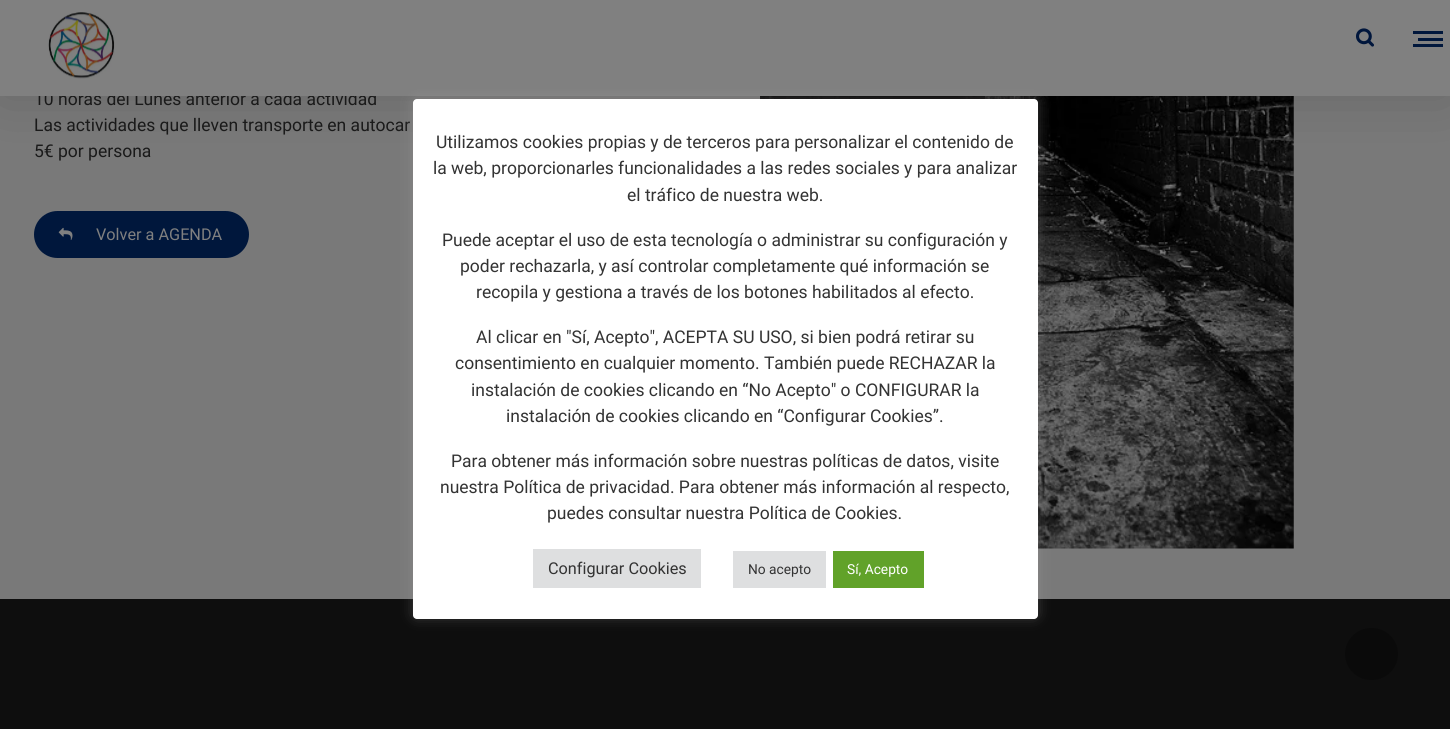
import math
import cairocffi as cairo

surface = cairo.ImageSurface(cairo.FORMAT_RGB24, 1450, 729)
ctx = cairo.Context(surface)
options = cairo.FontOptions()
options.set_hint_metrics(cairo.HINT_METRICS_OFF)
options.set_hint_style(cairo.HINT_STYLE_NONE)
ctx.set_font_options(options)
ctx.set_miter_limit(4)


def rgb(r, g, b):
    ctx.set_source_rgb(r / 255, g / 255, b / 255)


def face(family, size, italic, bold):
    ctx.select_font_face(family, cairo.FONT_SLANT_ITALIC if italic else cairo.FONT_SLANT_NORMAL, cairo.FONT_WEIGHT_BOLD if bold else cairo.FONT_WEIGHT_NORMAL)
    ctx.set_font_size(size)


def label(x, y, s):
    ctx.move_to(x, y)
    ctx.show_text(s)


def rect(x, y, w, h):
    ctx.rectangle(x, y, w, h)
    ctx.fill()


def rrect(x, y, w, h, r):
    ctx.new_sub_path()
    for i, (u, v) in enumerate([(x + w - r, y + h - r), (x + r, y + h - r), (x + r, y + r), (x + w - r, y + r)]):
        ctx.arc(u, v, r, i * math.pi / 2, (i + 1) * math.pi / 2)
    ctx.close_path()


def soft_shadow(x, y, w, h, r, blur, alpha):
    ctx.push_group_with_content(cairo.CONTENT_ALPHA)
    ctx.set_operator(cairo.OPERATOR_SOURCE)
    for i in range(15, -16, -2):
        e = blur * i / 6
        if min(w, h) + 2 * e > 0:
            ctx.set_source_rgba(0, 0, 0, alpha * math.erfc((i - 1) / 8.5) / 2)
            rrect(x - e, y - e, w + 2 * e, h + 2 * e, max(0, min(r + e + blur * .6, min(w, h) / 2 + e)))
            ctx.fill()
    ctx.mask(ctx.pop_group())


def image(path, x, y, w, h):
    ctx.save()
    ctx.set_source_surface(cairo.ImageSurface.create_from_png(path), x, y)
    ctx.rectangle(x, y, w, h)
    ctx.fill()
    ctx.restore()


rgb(121, 121, 121)
ctx.paint()
image('image3.png', 760, 96, 534, 453)
rgb(0, 0, 0)
soft_shadow(0, 0, 1450, 96, 0, 31, 0.15)
face('Roboto', 17.5, 0, 0)
rgb(26, 26, 26)
label(34, 105, '10 horas del Lunes anterior a cada actividad')
rgb(128, 128, 128)
rect(0, 0, 1450, 96)
image('image0.png', 48, 12, 67, 67)
image('image1.png', 1356, 28, 18, 19)
rgb(0, 23, 60)
rect(1413, 31, 30, 3)
rect(1418, 38, 25, 3)
rect(1413, 44, 30, 3)
rgb(26, 26, 26)
label(34, 131, 'Las actividades que lleven transporte en autocar')
label(34, 157, '5€ por persona')
rgb(0, 23, 60)
rrect(34, 211, 215, 47, 23.5)
ctx.fill()
image('image2.png', 58, 227, 15, 13)
face('Roboto', 16.25, 0, 0)
rgb(128, 128, 128)
label(96, 240, 'Volver a AGENDA')
rgb(14, 14, 14)
rect(0, 599, 1450, 130)
rgb(172, 171, 171)
soft_shadow(413, 98, 625, 520, 4, 6, 0.3)
rgb(255, 255, 255)
rrect(413, 99, 625, 520, 4)
ctx.fill()
face('Roboto', 17.5, 0, 0)
rgb(51, 51, 51)
label(436, 148, 'Utilizamos cookies propias y de terceros para personalizar el contenido de')
label(433, 174, 'la web, proporcionarles funcionalidades a las redes sociales y para analizar')
label(627, 201, 'el tráfico de nuestra web.')
label(442, 246, 'Puede aceptar el uso de esta tecnología o administrar su configuración y')
label(460, 272, 'poder rechazarla, y así controlar completamente qué información se')
label(476, 298, 'recopila y gestiona a través de los botones habilitados al efecto.')
label(476, 343, 'Al clicar en "Sí, Acepto", ACEPTA SU USO, si bien podrá retirar su')
label(455, 369, 'consentimiento en cualquier momento. También puede RECHAZAR la')
label(471, 396, 'instalación de cookies clicando en “No Acepto" o CONFIGURAR la')
label(506, 422, 'instalación de cookies clicando en “Configurar Cookies”.')
label(451, 467, 'Para obtener más información sobre nuestras políticas de datos, visite')
label(440, 493, 'nuestra Política de privacidad. Para obtener más información al respecto,')
label(547, 519, 'puedes consultar nuestra Política de Cookies.')
rgb(222, 223, 224)
rect(533, 549, 168, 39)
face('Roboto', 16.25, 0, 0)
rgb(51, 51, 51)
label(548, 574, 'Configurar Cookies')
rgb(222, 223, 224)
rect(733, 551, 93, 37)
face('Roboto', 13.75, 0, 0)
rgb(51, 51, 51)
label(748, 574, 'No acepto')
rgb(97, 162, 41)
rect(833, 551, 91, 37)
rgb(255, 255, 255)
label(847, 574, 'Sí, Acepto')
rgb(10, 10, 10)
rrect(1345, 628, 53, 52, 26)
ctx.fill()
surface.write_to_png('render.png')
